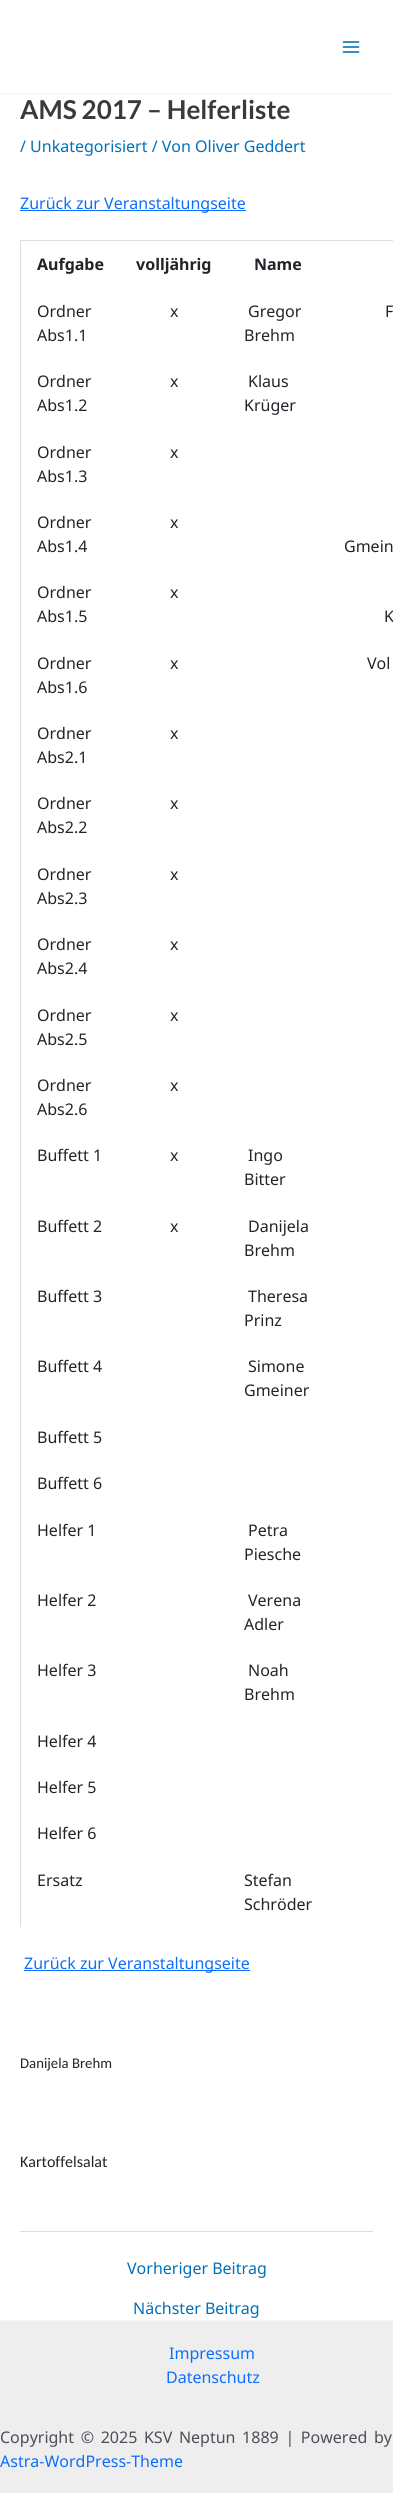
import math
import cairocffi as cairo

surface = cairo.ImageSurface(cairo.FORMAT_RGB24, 393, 2493)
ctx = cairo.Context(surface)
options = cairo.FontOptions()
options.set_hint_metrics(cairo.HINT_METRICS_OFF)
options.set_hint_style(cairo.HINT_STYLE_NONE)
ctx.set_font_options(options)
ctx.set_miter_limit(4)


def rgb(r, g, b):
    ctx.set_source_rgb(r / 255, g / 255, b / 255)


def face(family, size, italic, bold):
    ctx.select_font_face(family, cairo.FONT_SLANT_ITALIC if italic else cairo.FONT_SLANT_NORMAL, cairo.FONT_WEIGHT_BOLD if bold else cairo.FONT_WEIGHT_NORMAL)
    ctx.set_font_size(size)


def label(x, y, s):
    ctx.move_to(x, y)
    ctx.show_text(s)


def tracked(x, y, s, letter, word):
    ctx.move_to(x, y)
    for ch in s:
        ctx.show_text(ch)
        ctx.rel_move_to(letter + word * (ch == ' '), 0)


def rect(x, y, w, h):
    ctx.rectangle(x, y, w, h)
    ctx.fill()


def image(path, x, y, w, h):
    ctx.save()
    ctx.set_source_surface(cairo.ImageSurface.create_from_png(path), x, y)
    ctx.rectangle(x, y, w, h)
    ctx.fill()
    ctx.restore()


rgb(255, 255, 255)
ctx.paint()
rgb(242, 245, 247)
rect(0, 93, 393, 1)
image('image0.png', 342, 41, 18, 12)
face('Lato', 26, 0, 1)
rgb(58, 58, 58)
label(20, 119, 'AMS 2017 – Helferliste')
face('Noto Sans', 16, 0, 0)
rgb(1, 112, 185)
label(20, 152, '/ Unkategorisiert / Von Oliver Geddert')
rgb(13, 110, 253)
rect(20, 210, 226, 1)
label(20, 209, 'Zurück zur Veranstaltungseite')
rgb(221, 221, 221)
rect(20, 240, 373, 1)
rect(20, 240, 1, 1687)
face('Noto Sans', 16, 0, 1)
rgb(33, 37, 41)
label(37, 270, 'Aufgabe')
label(136, 270, 'volljährig')
label(254, 270, 'Name')
face('Noto Sans', 16, 0, 0)
label(37, 317, 'Ordner')
label(37, 341, 'Abs1.1')
label(170, 317, 'x')
label(248, 317, 'Gregor')
label(244, 341, 'Brehm')
label(385, 317, 'F')
label(37, 387, 'Ordner')
label(37, 411, 'Abs1.2')
label(170, 387, 'x')
label(248, 387, 'Klaus')
label(244, 411, 'Krüger')
label(37, 458, 'Ordner')
label(37, 482, 'Abs1.3')
label(170, 458, 'x')
label(37, 528, 'Ordner')
label(37, 552, 'Abs1.4')
label(170, 528, 'x')
label(344, 552, 'Gmein')
label(37, 598, 'Ordner')
label(37, 622, 'Abs1.5')
label(170, 598, 'x')
label(384, 622, 'K')
label(37, 669, 'Ordner')
label(37, 693, 'Abs1.6')
label(170, 669, 'x')
label(367, 669, 'Vol')
label(37, 739, 'Ordner')
label(37, 763, 'Abs2.1')
label(170, 739, 'x')
label(37, 809, 'Ordner')
label(37, 833, 'Abs2.2')
label(170, 809, 'x')
label(37, 880, 'Ordner')
label(37, 904, 'Abs2.3')
label(170, 880, 'x')
label(37, 950, 'Ordner')
label(37, 974, 'Abs2.4')
label(170, 950, 'x')
label(37, 1021, 'Ordner')
label(37, 1045, 'Abs2.5')
label(170, 1021, 'x')
label(37, 1091, 'Ordner')
label(37, 1115, 'Abs2.6')
label(170, 1091, 'x')
label(37, 1161, 'Buffett 1')
label(170, 1161, 'x')
label(248, 1161, 'Ingo')
label(244, 1185, 'Bitter')
label(37, 1232, 'Buffett 2')
label(170, 1232, 'x')
label(248, 1232, 'Danijela')
label(244, 1256, 'Brehm')
label(37, 1302, 'Buffett 3')
label(248, 1302, 'Theresa')
label(244, 1326, 'Prinz')
label(37, 1372, 'Buffett 4')
label(248, 1372, 'Simone')
label(244, 1396, 'Gmeiner')
label(37, 1443, 'Buffett 5')
label(37, 1489, 'Buffett 6')
label(37, 1536, 'Helfer 1')
label(248, 1536, 'Petra')
label(244, 1560, 'Piesche')
label(37, 1606, 'Helfer 2')
label(248, 1606, 'Verena')
label(244, 1630, 'Adler')
label(37, 1676, 'Helfer 3')
label(248, 1676, 'Noah')
label(244, 1700, 'Brehm')
label(37, 1747, 'Helfer 4')
label(37, 1793, 'Helfer 5')
label(37, 1839, 'Helfer 6')
label(37, 1886, 'Ersatz')
label(244, 1886, 'Stefan')
label(244, 1910, 'Schröder')
rgb(13, 110, 253)
rect(24, 1970, 226, 1)
label(24, 1969, 'Zurück zur Veranstaltungseite')
face('Carlito', 14.75, 0, 0)
rgb(33, 37, 41)
label(20, 2068, 'Danijela Brehm')
face('Carlito', 16, 0, 0)
label(20, 2167, 'Kartoffelsalat')
rgb(221, 221, 221)
rect(20, 2231, 353, 1)
face('Noto Sans', 16, 0, 0)
rgb(1, 112, 185)
label(127, 2274, 'Vorheriger Beitrag')
label(133, 2314, 'Nächster Beitrag')
rgb(238, 238, 238)
rect(0, 2321, 393, 172)
rgb(242, 245, 247)
rect(0, 2320, 393, 1)
rgb(13, 110, 253)
label(169, 2359, 'Impressum')
label(166, 2383, 'Datenschutz')
rgb(75, 79, 88)
tracked(0, 2443, 'Copyright © 2025 KSV Neptun 1889 | Powered by', 0, 2.5)
rgb(13, 110, 253)
label(0, 2467, 'Astra-WordPress-Theme')
surface.write_to_png('render.png')
